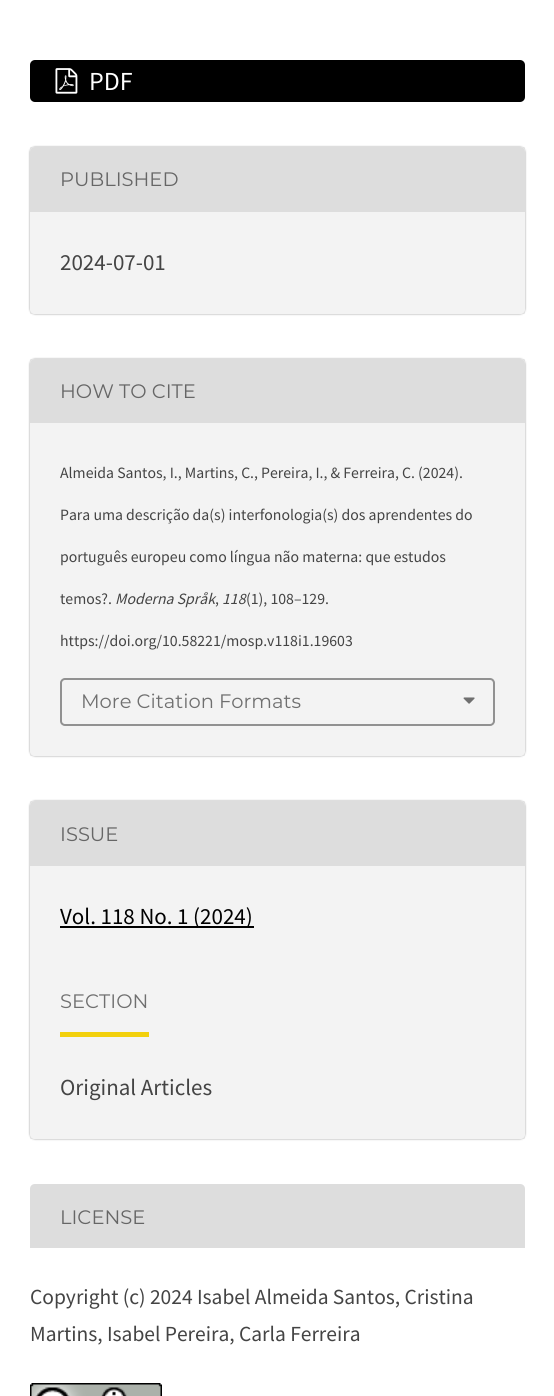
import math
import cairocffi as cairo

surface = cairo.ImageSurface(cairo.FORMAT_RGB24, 554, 1396)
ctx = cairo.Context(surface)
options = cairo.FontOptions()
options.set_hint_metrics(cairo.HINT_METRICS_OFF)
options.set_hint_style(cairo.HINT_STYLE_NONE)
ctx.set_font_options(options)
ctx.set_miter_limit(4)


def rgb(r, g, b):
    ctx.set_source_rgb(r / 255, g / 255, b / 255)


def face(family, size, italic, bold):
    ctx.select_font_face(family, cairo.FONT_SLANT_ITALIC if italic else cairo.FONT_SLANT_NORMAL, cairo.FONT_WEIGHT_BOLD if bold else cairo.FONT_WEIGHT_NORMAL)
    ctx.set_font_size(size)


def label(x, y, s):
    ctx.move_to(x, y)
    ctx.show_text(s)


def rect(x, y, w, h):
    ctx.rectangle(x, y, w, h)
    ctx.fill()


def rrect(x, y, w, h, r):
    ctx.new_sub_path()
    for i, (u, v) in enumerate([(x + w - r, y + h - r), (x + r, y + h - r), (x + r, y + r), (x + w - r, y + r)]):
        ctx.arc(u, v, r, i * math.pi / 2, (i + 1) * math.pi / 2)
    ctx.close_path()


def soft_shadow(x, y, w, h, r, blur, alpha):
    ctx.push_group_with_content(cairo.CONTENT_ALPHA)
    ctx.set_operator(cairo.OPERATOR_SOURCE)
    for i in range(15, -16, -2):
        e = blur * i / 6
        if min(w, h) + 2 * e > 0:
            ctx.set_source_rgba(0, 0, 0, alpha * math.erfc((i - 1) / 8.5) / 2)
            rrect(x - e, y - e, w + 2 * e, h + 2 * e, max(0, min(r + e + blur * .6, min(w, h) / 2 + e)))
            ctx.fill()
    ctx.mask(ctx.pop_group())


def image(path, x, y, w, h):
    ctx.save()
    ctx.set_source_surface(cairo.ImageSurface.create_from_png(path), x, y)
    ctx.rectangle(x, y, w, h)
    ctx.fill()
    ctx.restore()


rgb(255, 255, 255)
ctx.paint()
rgb(0, 0, 0)
rrect(30, 60, 495, 42, 5)
ctx.fill()
image('image0.png', 55, 68, 23, 26)
face('Source Sans Pro', 26, 0, 0)
rgb(255, 255, 255)
label(89, 90, 'PDF')
ctx.save()
ctx.set_fill_rule(cairo.FILL_RULE_EVEN_ODD)
ctx.new_path()
ctx.move_to(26, 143)
ctx.line_to(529, 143)
ctx.line_to(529, 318)
ctx.line_to(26, 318)
ctx.close_path()
ctx.move_to(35, 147)
ctx.line_to(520, 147)
ctx.curve_to(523, 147, 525, 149, 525, 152)
ctx.line_to(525, 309)
ctx.curve_to(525, 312, 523, 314, 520, 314)
ctx.line_to(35, 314)
ctx.curve_to(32, 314, 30, 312, 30, 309)
ctx.line_to(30, 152)
ctx.curve_to(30, 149, 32, 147, 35, 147)
ctx.close_path()
ctx.clip()
rgb(0, 0, 0)
soft_shadow(30, 147, 495, 167, 5, 1, 0.4)
ctx.restore()
ctx.set_source_rgba(0, 0, 0, 0.05)
rect(30, 147, 495, 167)
rgb(221, 221, 221)
ctx.new_path()
ctx.move_to(35, 147)
ctx.line_to(520, 147)
ctx.curve_to(523, 147, 525, 149, 525, 152)
ctx.line_to(525, 212)
ctx.line_to(30, 212)
ctx.line_to(30, 152)
ctx.curve_to(30, 149, 32, 147, 35, 147)
ctx.close_path()
ctx.fill()
face('Montserrat', 19.5, 0, 0)
rgb(102, 102, 102)
label(60, 186, 'PUBLISHED')
face('Source Sans Pro', 23, 0, 0)
rgb(68, 68, 68)
label(60, 270, '2024-07-01')
ctx.save()
ctx.set_fill_rule(cairo.FILL_RULE_EVEN_ODD)
ctx.new_path()
ctx.move_to(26, 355)
ctx.line_to(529, 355)
ctx.line_to(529, 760)
ctx.line_to(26, 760)
ctx.close_path()
ctx.move_to(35, 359)
ctx.line_to(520, 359)
ctx.curve_to(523, 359, 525, 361, 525, 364)
ctx.line_to(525, 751)
ctx.curve_to(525, 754, 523, 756, 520, 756)
ctx.line_to(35, 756)
ctx.curve_to(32, 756, 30, 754, 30, 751)
ctx.line_to(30, 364)
ctx.curve_to(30, 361, 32, 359, 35, 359)
ctx.close_path()
ctx.clip()
rgb(0, 0, 0)
soft_shadow(30, 359, 495, 397, 5, 1, 0.4)
ctx.restore()
ctx.set_source_rgba(0, 0, 0, 0.05)
rect(30, 359, 495, 397)
rgb(221, 221, 221)
ctx.new_path()
ctx.move_to(35, 359)
ctx.line_to(520, 359)
ctx.curve_to(523, 359, 525, 361, 525, 364)
ctx.line_to(525, 423)
ctx.line_to(30, 423)
ctx.line_to(30, 364)
ctx.curve_to(30, 361, 32, 359, 35, 359)
ctx.close_path()
ctx.fill()
face('Montserrat', 19.5, 0, 0)
rgb(102, 102, 102)
label(60, 398, 'HOW TO CITE')
face('Source Sans Pro', 15.75, 0, 0)
rgb(68, 68, 68)
label(60, 478, 'Almeida Santos, I., Martins, C., Pereira, I., & Ferreira, C. (2024).')
label(60, 520, 'Para uma descrição da(s) interfonologia(s) dos aprendentes do')
label(60, 562, 'português europeu como língua não materna: que estudos')
label(60, 604, 'temos?.')
face('Source Sans Pro', 15.75, 1, 0)
label(115, 604, 'Moderna Språk')
label(222, 604, '118')
face('Source Sans Pro', 15.75, 0, 0)
label(246, 604, '(1), 108–129.')
label(215, 604, ',')
label(60, 646, 'https://doi.org/10.58221/mosp.v118i1.19603')
rrect(61, 679, 433, 46, 4)
rgb(145, 145, 145)
ctx.stroke()
face('Montserrat', 19.5, 0, 0)
rgb(111, 111, 111)
label(81, 708, 'More Citation Formats')
image('image1.png', 463, 697, 12, 7)
ctx.save()
ctx.set_fill_rule(cairo.FILL_RULE_EVEN_ODD)
ctx.new_path()
ctx.move_to(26, 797)
ctx.line_to(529, 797)
ctx.line_to(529, 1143)
ctx.line_to(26, 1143)
ctx.close_path()
ctx.move_to(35, 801)
ctx.line_to(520, 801)
ctx.curve_to(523, 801, 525, 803, 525, 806)
ctx.line_to(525, 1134)
ctx.curve_to(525, 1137, 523, 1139, 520, 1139)
ctx.line_to(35, 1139)
ctx.curve_to(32, 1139, 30, 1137, 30, 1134)
ctx.line_to(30, 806)
ctx.curve_to(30, 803, 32, 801, 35, 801)
ctx.close_path()
ctx.clip()
rgb(0, 0, 0)
soft_shadow(30, 801, 495, 338, 5, 1, 0.4)
ctx.restore()
ctx.set_source_rgba(0, 0, 0, 0.05)
rect(30, 801, 495, 338)
rgb(221, 221, 221)
ctx.new_path()
ctx.move_to(35, 801)
ctx.line_to(520, 801)
ctx.curve_to(523, 801, 525, 803, 525, 806)
ctx.line_to(525, 866)
ctx.line_to(30, 866)
ctx.line_to(30, 806)
ctx.curve_to(30, 803, 32, 801, 35, 801)
ctx.close_path()
ctx.fill()
rgb(102, 102, 102)
label(60, 841, 'ISSUE')
rgb(0, 0, 0)
rect(60, 926, 194, 2)
face('Source Sans Pro', 23, 0, 0)
label(60, 924, 'Vol. 118 No. 1 (2024)')
rgb(242, 208, 12)
rect(60, 1032, 89, 5)
face('Montserrat', 19.5, 0, 0)
rgb(111, 111, 111)
label(60, 1008, 'SECTION')
face('Source Sans Pro', 23, 0, 0)
rgb(68, 68, 68)
label(60, 1095, 'Original Articles')
rgb(221, 221, 221)
ctx.new_path()
ctx.move_to(35, 1184)
ctx.line_to(520, 1184)
ctx.curve_to(523, 1184, 525, 1186, 525, 1189)
ctx.line_to(525, 1248)
ctx.line_to(30, 1248)
ctx.line_to(30, 1189)
ctx.curve_to(30, 1186, 32, 1184, 35, 1184)
ctx.close_path()
ctx.fill()
face('Montserrat', 19.5, 0, 0)
rgb(102, 102, 102)
label(60, 1224, 'LICENSE')
face('Source Sans Pro', 21.5, 0, 0)
rgb(68, 68, 68)
label(30, 1304, 'Copyright (c) 2024 Isabel Almeida Santos, Cristina')
label(30, 1341, 'Martins, Isabel Pereira, Carla Ferreira')
image('image2.png', 30, 1383, 132, 13)
surface.write_to_png('render.png')
